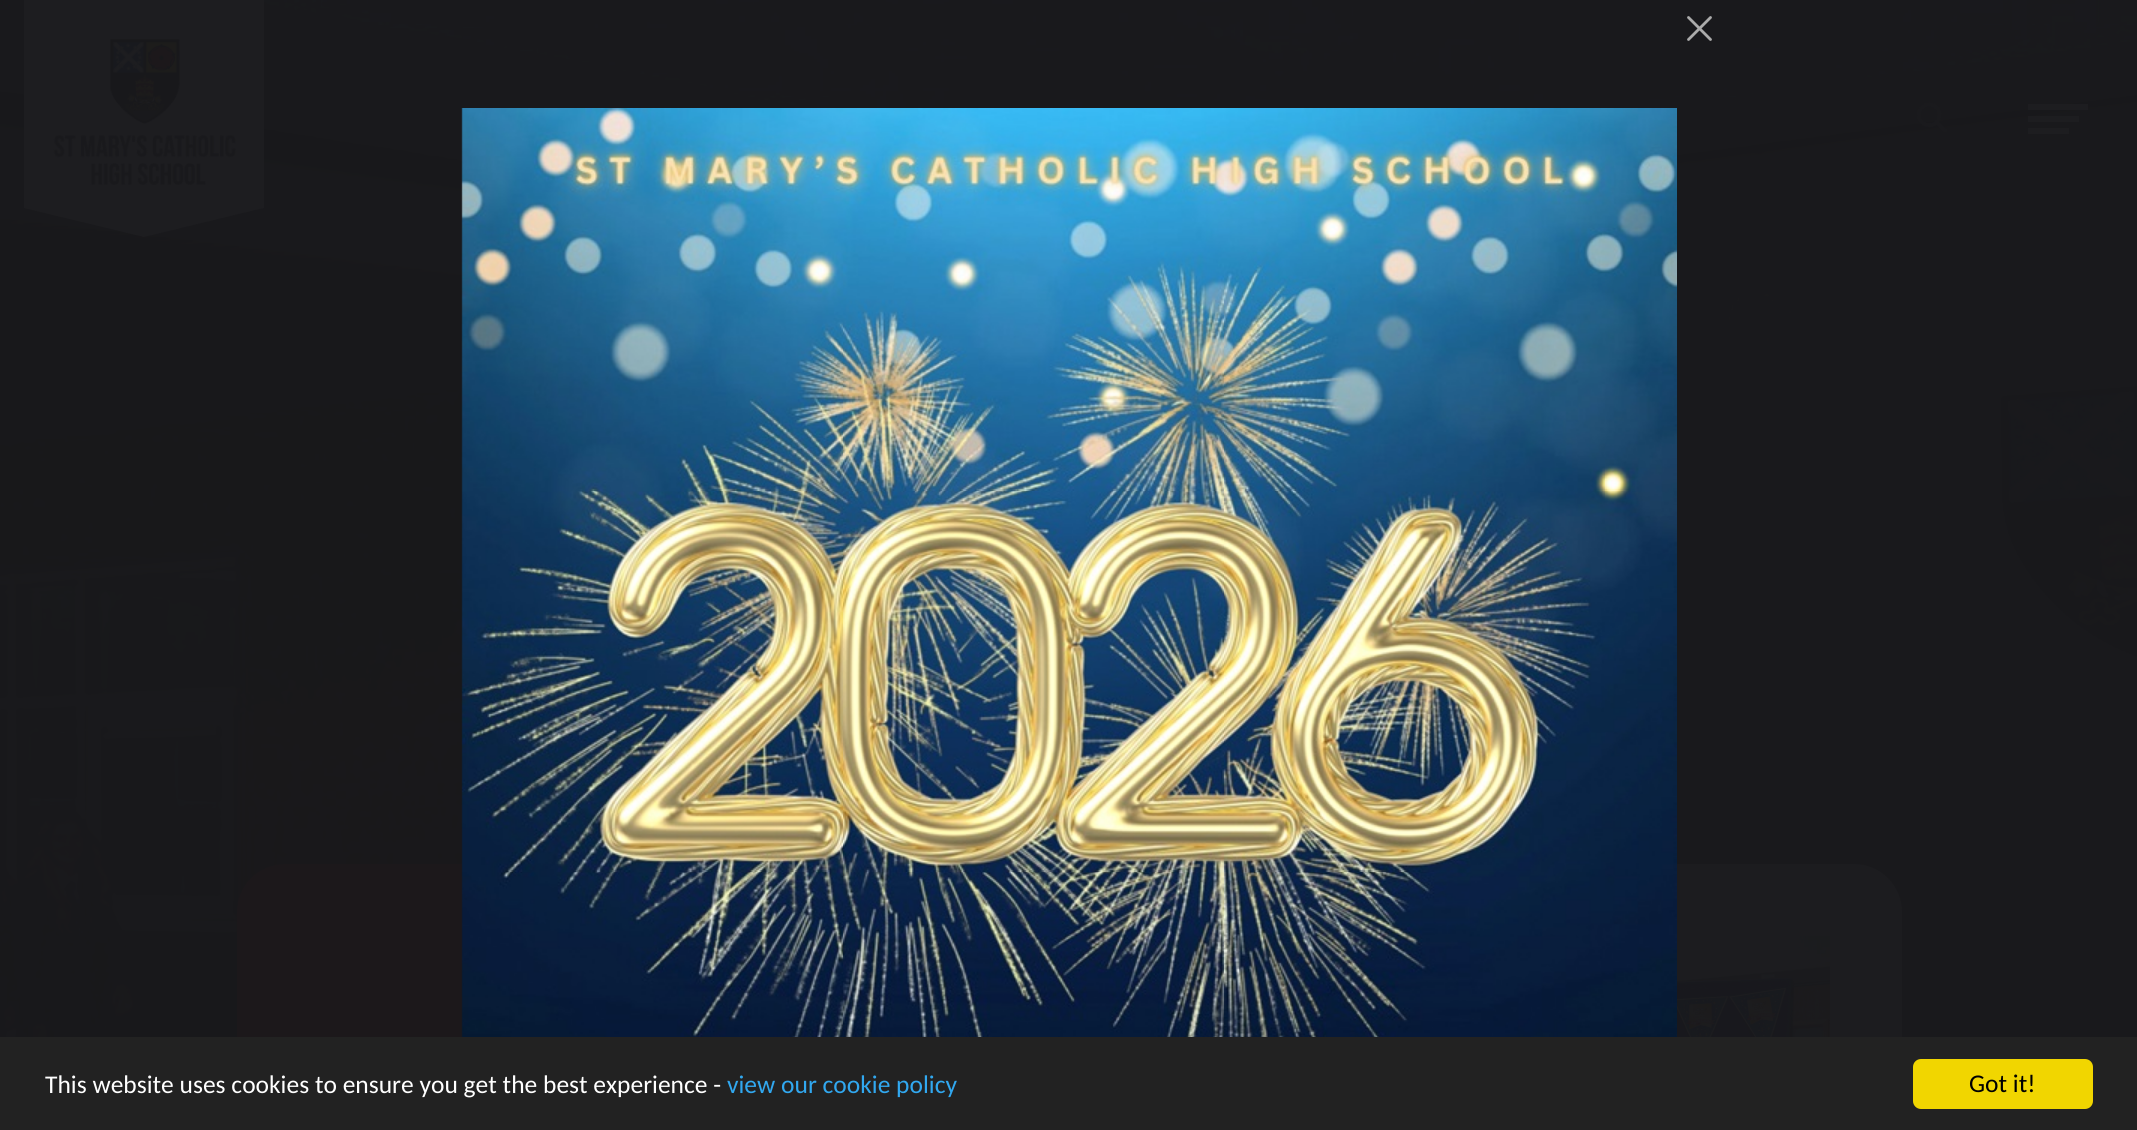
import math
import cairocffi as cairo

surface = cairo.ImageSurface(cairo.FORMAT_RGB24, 2137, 1130)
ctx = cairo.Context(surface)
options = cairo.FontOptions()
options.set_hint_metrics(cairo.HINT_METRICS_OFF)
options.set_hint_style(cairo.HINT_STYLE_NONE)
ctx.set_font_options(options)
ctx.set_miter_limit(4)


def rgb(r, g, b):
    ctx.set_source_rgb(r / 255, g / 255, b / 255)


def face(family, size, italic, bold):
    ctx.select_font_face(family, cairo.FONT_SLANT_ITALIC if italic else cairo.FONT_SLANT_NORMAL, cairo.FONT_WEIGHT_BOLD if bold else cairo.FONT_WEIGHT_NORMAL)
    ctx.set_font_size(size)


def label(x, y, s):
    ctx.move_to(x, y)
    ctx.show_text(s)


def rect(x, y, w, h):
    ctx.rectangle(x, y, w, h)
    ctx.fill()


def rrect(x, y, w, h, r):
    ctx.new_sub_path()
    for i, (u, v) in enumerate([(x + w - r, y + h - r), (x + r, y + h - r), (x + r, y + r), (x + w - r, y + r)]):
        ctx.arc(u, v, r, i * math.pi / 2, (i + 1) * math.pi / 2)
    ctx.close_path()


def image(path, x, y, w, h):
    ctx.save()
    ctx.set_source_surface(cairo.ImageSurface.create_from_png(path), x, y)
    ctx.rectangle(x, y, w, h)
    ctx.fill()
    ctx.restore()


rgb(255, 255, 255)
ctx.paint()
image('image0.png', 0, 0, 2137, 1037)
rgb(28, 24, 27)
rrect(237, 864, 383, 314, 48)
ctx.fill()
rgb(28, 28, 31)
rrect(665, 864, 1237, 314, 48)
ctx.fill()
image('image1.png', 1677, 936, 153, 101)
image('image2.png', 24, 0, 240, 237)
image('image3.png', 53, 39, 184, 146)
image('image4.png', 1917, 102, 30, 31)
rgb(29, 29, 32)
rect(2028, 104, 60, 6)
rect(2028, 116, 51, 6)
rect(2028, 128, 41, 6)
ctx.new_path()
ctx.move_to(1710.5, 39.5)
ctx.line_to(1688.5, 17.5)
ctx.move_to(1710.5, 17.5)
ctx.line_to(1688.5, 39.5)
rgb(171, 171, 171)
ctx.set_line_width(2.8)
ctx.set_line_cap(cairo.LINE_CAP_ROUND)
ctx.set_line_join(cairo.LINE_JOIN_ROUND)
ctx.stroke()
image('image5.png', 461, 108, 1216, 929)
rgb(34, 34, 34)
rect(0, 1037, 2137, 93)
face('Carlito', 25.5, 0, 0)
rgb(255, 255, 255)
label(45, 1093, 'This website uses cookies to ensure you get the best experience -')
rgb(49, 168, 240)
label(727, 1093, 'view our cookie policy')
rgb(241, 214, 0)
rrect(1913, 1059, 180, 50, 8)
ctx.fill()
rgb(0, 0, 0)
label(1969, 1092, 'Got it!')
surface.write_to_png('render.png')
